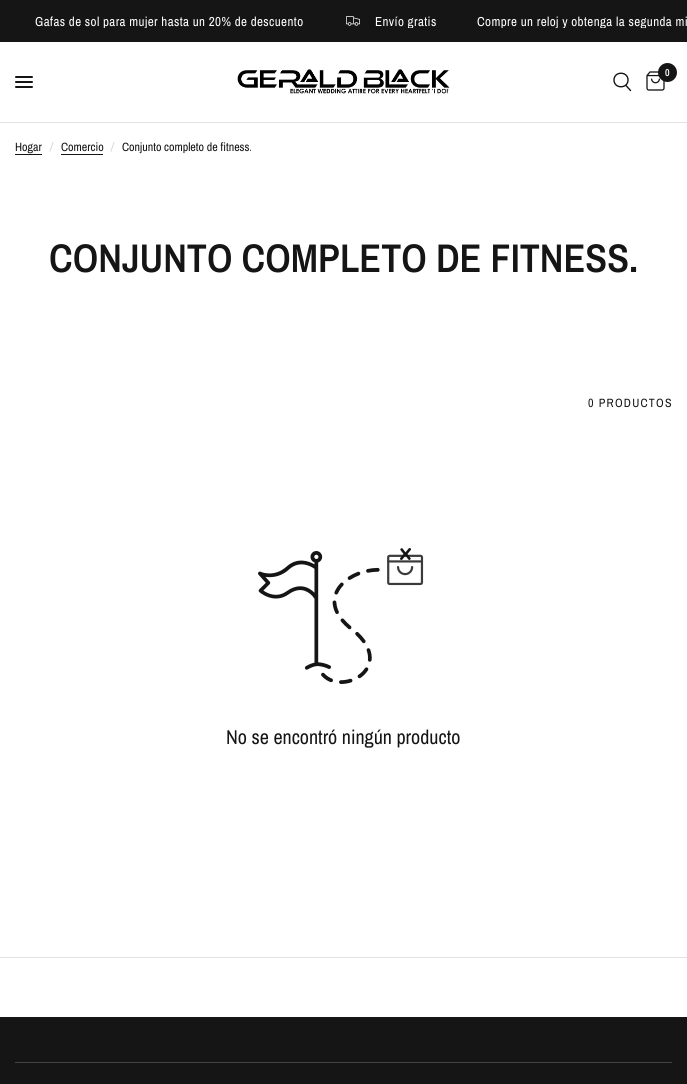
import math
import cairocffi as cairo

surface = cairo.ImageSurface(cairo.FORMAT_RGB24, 687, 1084)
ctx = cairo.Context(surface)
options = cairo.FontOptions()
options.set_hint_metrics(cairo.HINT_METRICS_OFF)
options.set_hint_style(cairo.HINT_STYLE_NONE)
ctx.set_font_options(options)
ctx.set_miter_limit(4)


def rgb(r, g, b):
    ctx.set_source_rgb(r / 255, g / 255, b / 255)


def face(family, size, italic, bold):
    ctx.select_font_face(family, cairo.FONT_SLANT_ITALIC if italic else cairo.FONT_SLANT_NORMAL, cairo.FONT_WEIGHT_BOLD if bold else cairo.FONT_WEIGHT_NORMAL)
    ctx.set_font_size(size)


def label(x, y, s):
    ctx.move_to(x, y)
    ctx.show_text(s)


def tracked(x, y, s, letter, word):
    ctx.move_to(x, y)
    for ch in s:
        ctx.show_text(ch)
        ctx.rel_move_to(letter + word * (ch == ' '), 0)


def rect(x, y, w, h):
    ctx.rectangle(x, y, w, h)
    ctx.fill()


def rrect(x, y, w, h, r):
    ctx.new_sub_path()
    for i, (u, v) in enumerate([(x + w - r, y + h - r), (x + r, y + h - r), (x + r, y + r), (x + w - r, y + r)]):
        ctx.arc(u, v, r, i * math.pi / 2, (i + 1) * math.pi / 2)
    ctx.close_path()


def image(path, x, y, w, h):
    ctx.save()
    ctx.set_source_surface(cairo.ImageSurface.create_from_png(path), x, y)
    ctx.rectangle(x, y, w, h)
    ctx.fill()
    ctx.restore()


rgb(255, 255, 255)
ctx.paint()
rgb(21, 21, 21)
rect(0, 0, 687, 42)
ctx.save()
ctx.rectangle(0, 14, 687, 14)
ctx.clip()
face('Archivo Narrow', 13, 0, 0)
rgb(255, 255, 255)
tracked(35, 26, 'Gafas de sol para mujer hasta un 20% de descuento', 0.4, 0)
ctx.restore()
image('image0.png', 346, 16, 14, 10)
ctx.save()
ctx.rectangle(0, 14, 687, 14)
ctx.clip()
face('Archivo Narrow', 13, 0, 0)
rgb(255, 255, 255)
tracked(375, 26, 'Envío gratis', 0.4, 0)
tracked(477, 26, 'Compre un reloj y obtenga la segunda mi', 0.4, 0)
ctx.restore()
rgb(226, 226, 226)
rect(0, 122, 687, 1)
image('image1.png', 237, 69, 213, 25)
ctx.new_path()
ctx.move_to(626, 85.5)
ctx.line_to(630.5, 90.5)
ctx.move_to(628, 80)
ctx.curve_to(628, 89, 614, 89, 614, 80)
ctx.curve_to(614, 71, 628, 71, 628, 80)
ctx.close_path()
rgb(21, 21, 21)
ctx.set_line_width(1.4)
ctx.set_line_cap(cairo.LINE_CAP_ROUND)
ctx.set_line_join(cairo.LINE_JOIN_ROUND)
ctx.stroke()
image('image2.png', 646, 71, 19, 20)
ctx.arc(667.5, 72.5, 9.5, 0, 2 * math.pi)
ctx.fill()
face('Archivo Narrow SemiBold', 10, 0, 0)
rgb(255, 255, 255)
label(665, 76, '0')
rgb(21, 21, 21)
rrect(15, 76, 18, 2, 1)
ctx.fill()
rrect(15, 81, 18, 2, 1)
ctx.fill()
rrect(15, 86, 18, 2, 1)
ctx.fill()
face('Archivo Narrow', 12, 0, 0)
label(15, 151, 'Hogar')
rect(15, 154, 27, 1)
face('Archivo Narrow', 12, 1, 0)
rgb(208, 208, 208)
label(50, 151, '/')
face('Archivo Narrow', 12, 0, 0)
rgb(21, 21, 21)
label(61, 151, 'Comercio')
rect(61, 154, 42, 1)
face('Archivo Narrow', 12, 1, 0)
rgb(208, 208, 208)
label(111, 151, '/')
face('Archivo Narrow', 12, 0, 0)
rgb(21, 21, 21)
label(122, 151, 'Conjunto completo de fitness.')
face('Archivo Narrow SemiBold', 40, 0, 0)
label(49, 272, 'CONJUNTO COMPLETO DE FITNESS.')
face('Archivo Narrow', 12, 0, 0)
tracked(588, 407, '0 PRODUCTOS', 1.25, 0)
image('image3.png', 258, 548, 166, 136)
face('Archivo Narrow', 20, 0, 0)
label(226, 744, 'No se encontró ningún producto')
rgb(226, 226, 226)
rect(0, 957, 687, 1)
rgb(21, 21, 21)
rect(0, 1017, 687, 67)
rgb(68, 68, 68)
rect(15, 1062, 657, 1)
surface.write_to_png('render.png')
